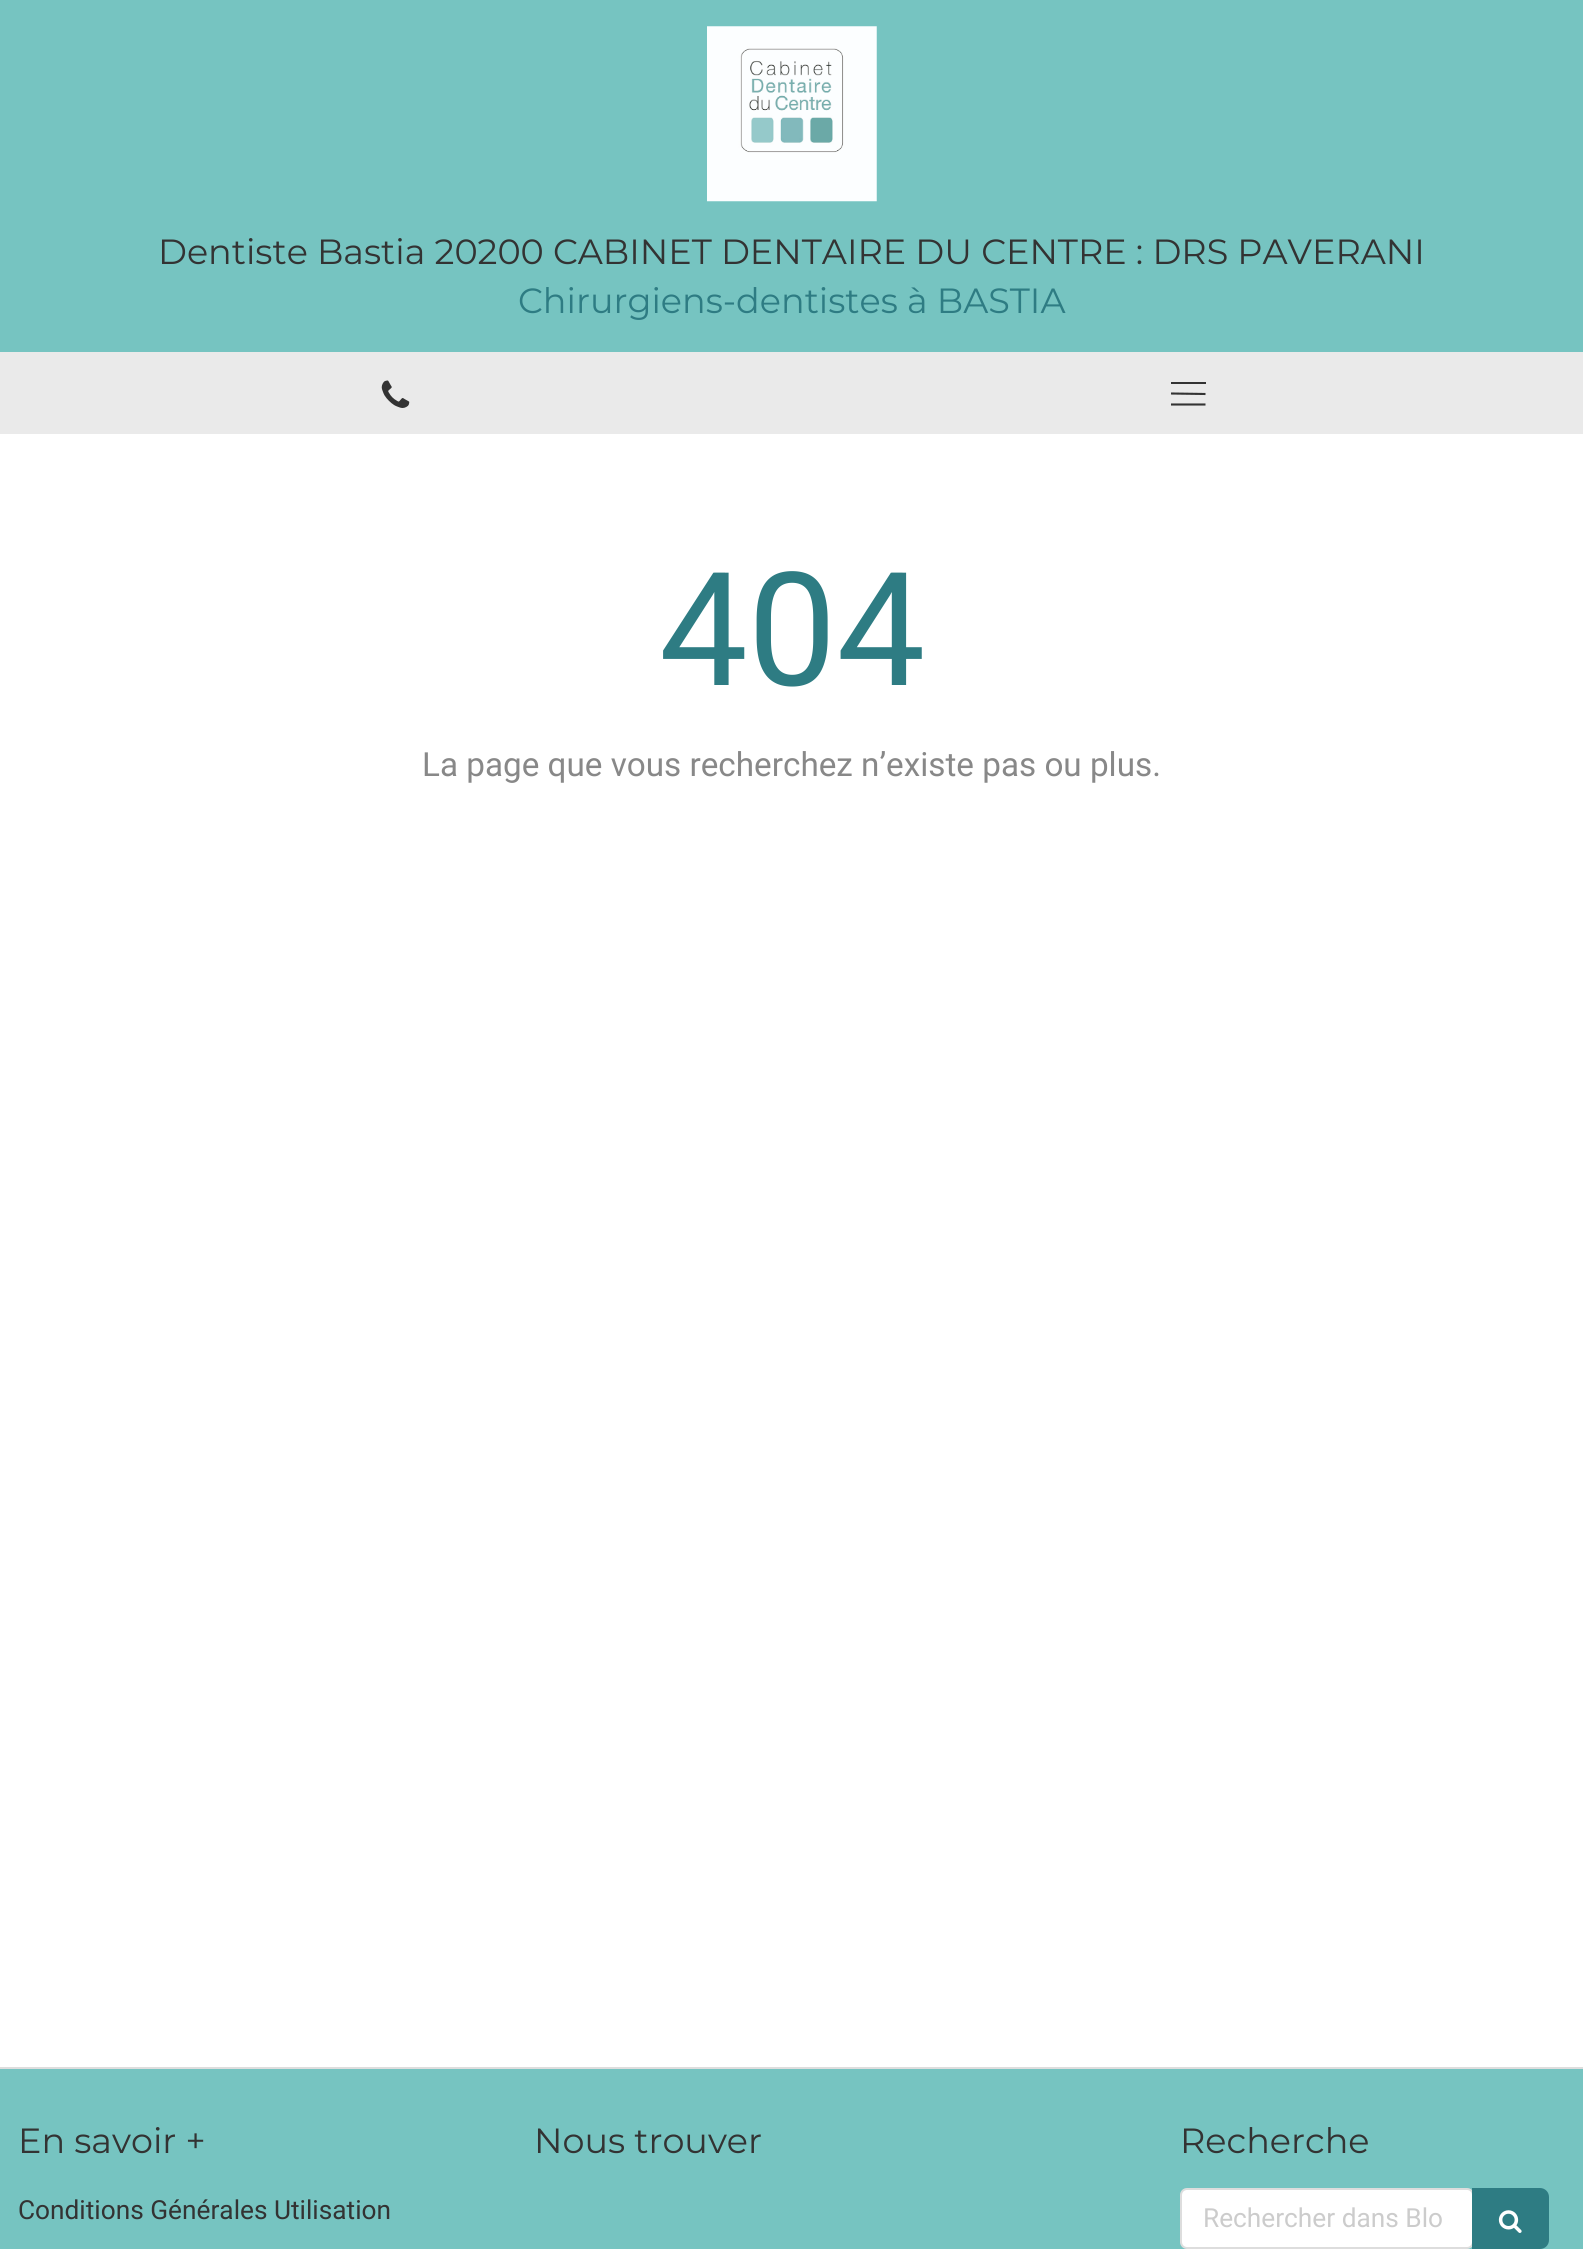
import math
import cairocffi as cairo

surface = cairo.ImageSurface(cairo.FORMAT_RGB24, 1583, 2249)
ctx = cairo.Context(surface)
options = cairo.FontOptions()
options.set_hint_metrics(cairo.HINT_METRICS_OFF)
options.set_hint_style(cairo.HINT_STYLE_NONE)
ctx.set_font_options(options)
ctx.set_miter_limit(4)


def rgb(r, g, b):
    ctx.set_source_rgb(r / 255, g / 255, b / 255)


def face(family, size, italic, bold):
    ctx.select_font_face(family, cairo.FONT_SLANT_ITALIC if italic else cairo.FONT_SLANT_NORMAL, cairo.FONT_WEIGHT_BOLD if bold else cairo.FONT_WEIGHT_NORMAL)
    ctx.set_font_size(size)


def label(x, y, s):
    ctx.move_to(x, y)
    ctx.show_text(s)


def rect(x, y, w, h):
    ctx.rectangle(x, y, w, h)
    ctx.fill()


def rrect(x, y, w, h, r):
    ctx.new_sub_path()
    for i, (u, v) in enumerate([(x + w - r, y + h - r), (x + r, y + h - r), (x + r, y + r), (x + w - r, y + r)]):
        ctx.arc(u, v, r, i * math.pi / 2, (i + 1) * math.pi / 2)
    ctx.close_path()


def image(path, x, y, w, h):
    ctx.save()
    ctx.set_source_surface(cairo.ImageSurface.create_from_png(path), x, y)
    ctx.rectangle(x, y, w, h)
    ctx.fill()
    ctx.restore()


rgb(255, 255, 255)
ctx.paint()
rgb(118, 196, 193)
rect(0, 0, 1583, 352)
image('image0.png', 707, 26, 170, 176)
face('Montserrat', 35, 0, 0)
rgb(51, 51, 51)
label(158, 264, 'Dentiste Bastia 20200 CABINET DENTAIRE DU CENTRE : DRS PAVERANI')
rgb(46, 124, 131)
label(518, 313, 'Chirurgiens-dentistes à BASTIA')
rgb(234, 234, 234)
rect(0, 352, 1583, 82)
image('image1.png', 381, 380, 29, 28)
rgb(51, 51, 51)
rect(1171, 382, 35, 2)
ctx.new_path()
ctx.move_to(1171, 393.5)
ctx.line_to(1205.5, 394)
ctx.set_line_width(2.1)
ctx.stroke()
ctx.new_path()
ctx.move_to(1171, 404.5)
ctx.line_to(1205.5, 404.5)
ctx.stroke()
face('Roboto', 158, 0, 0)
rgb(46, 124, 131)
label(659, 685, '404')
face('Roboto', 33.25, 0, 0)
rgb(136, 136, 136)
label(422, 776, 'La page que vous recherchez n’existe pas ou plus.')
rgb(221, 221, 221)
rect(0, 2067, 1583, 2)
rgb(118, 196, 193)
rect(0, 2069, 1583, 180)
face('Montserrat', 35, 0, 0)
rgb(51, 51, 51)
label(18, 2153, 'En savoir +')
face('Roboto', 26.25, 0, 0)
label(18, 2219, 'Conditions Générales Utilisation')
face('Montserrat', 35, 0, 0)
label(534, 2153, 'Nous trouver')
label(1180, 2153, 'Recherche')
rgb(255, 255, 255)
rrect(1181, 2189, 292, 59, 6)
ctx.fill_preserve()
rgb(221, 221, 221)
ctx.set_line_width(2)
ctx.stroke()
face('Roboto', 26.25, 0, 0)
rgb(204, 204, 204)
label(1203, 2227, 'Rechercher dans Blo')
rgb(46, 124, 131)
ctx.new_path()
ctx.move_to(1472, 2188)
ctx.line_to(1540, 2188)
ctx.curve_to(1545, 2188, 1549, 2192, 1549, 2197)
ctx.line_to(1549, 2240)
ctx.curve_to(1549, 2245, 1545, 2249, 1540, 2249)
ctx.line_to(1472, 2249)
ctx.close_path()
ctx.fill()
image('image2.png', 1498, 2210, 24, 23)
surface.write_to_png('render.png')
